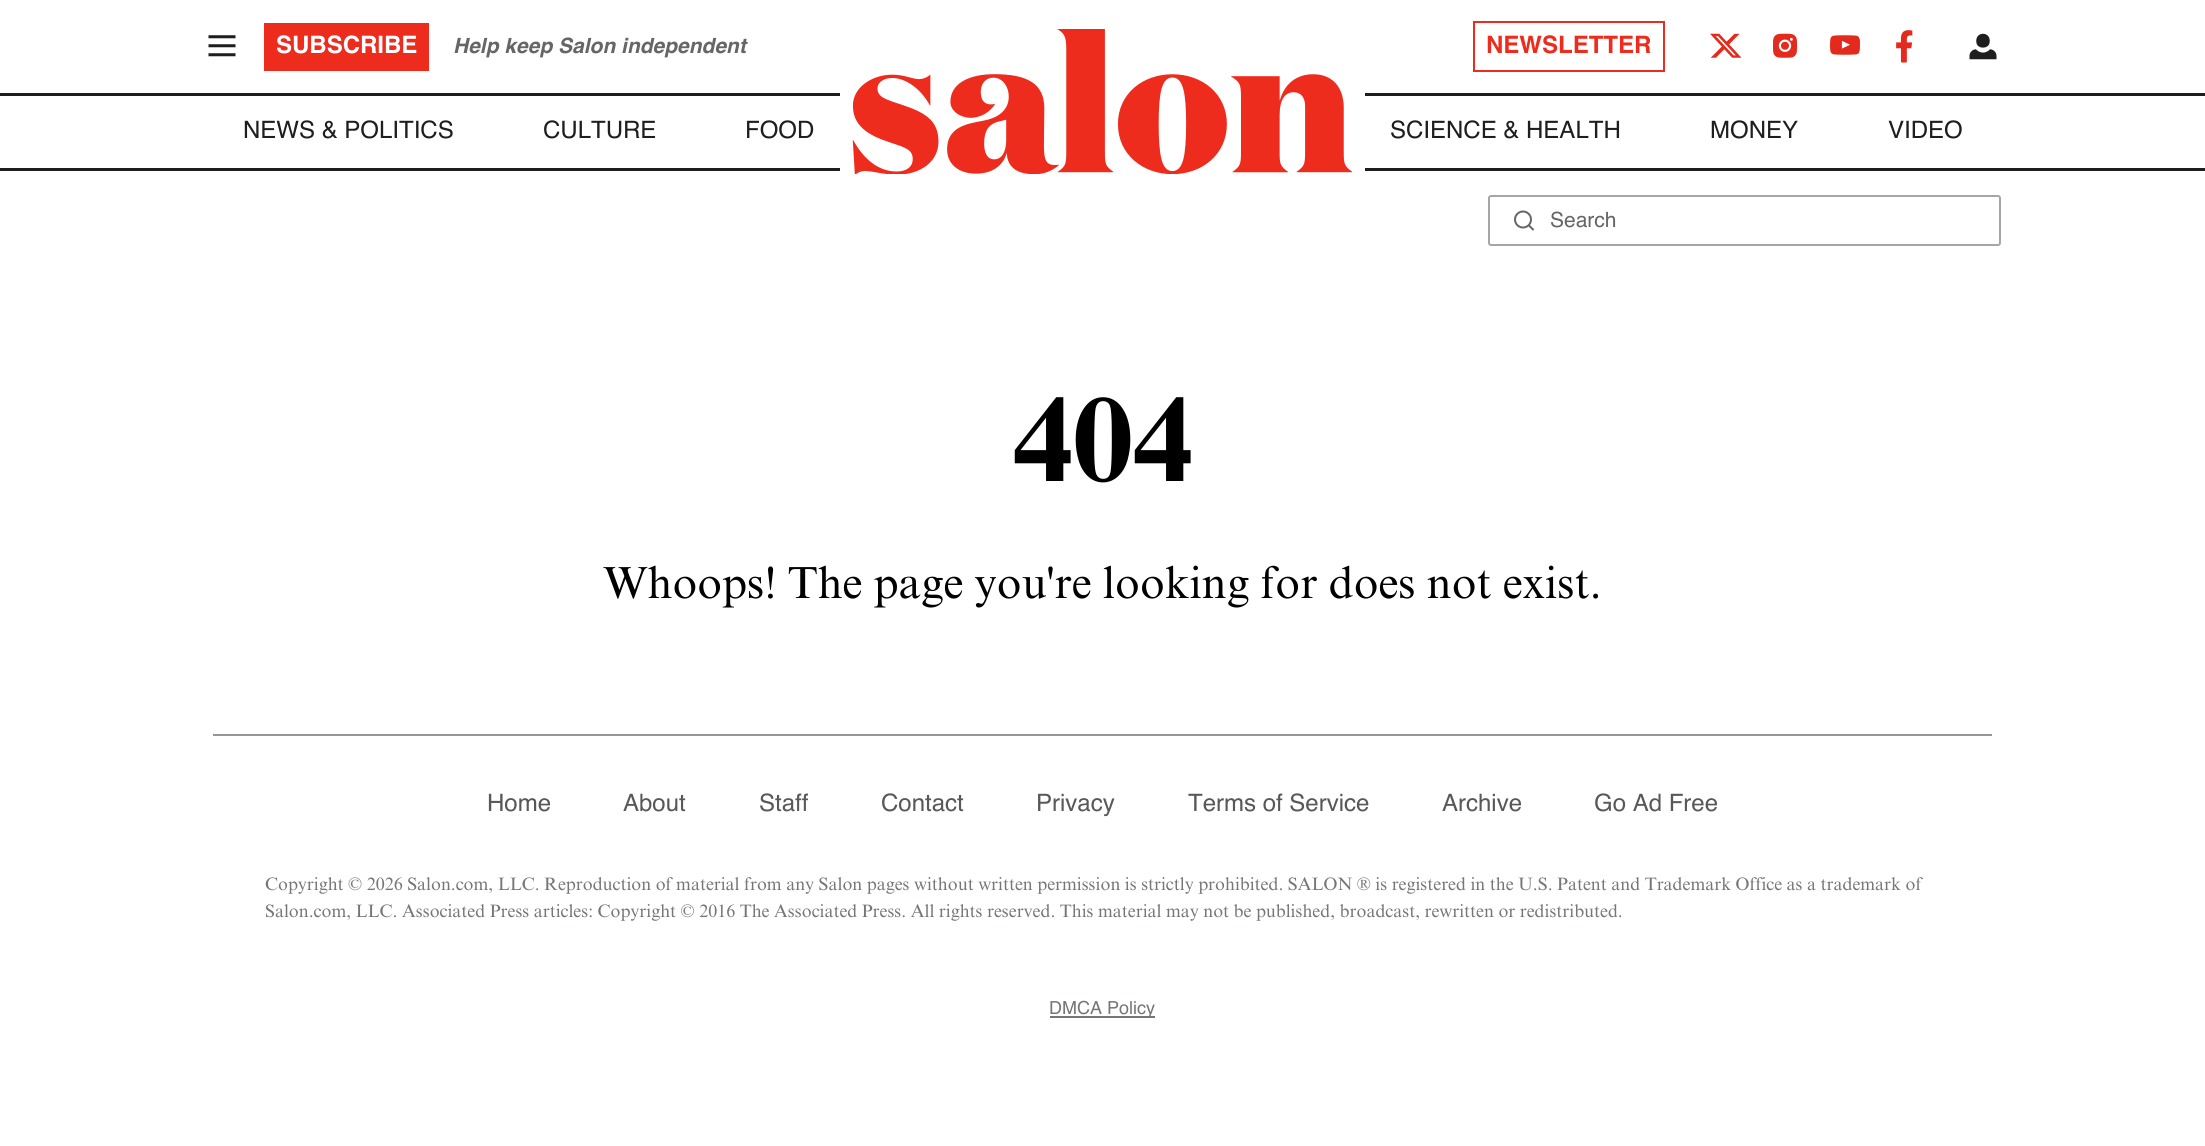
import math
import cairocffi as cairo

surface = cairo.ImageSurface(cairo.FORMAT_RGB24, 2205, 1146)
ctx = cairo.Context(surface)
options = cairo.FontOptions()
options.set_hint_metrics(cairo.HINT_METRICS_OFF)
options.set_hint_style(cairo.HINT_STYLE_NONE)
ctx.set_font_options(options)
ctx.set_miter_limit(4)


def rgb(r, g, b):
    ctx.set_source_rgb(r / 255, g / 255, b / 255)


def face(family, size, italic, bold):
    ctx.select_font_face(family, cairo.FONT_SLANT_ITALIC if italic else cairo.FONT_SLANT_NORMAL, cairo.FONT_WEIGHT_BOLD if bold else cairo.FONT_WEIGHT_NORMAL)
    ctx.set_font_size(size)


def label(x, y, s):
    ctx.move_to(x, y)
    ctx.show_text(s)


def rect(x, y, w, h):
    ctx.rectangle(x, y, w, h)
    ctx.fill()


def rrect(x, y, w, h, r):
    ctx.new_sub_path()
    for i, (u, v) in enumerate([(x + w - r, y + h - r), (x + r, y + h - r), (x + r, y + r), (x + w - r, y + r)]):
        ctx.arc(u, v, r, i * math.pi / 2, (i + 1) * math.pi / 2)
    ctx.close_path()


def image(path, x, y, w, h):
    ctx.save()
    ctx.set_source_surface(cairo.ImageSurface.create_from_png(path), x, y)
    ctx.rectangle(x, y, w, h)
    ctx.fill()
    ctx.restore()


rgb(255, 255, 255)
ctx.paint()
image('image0.png', 208, 35, 28, 22)
rgb(237, 44, 29)
rect(264, 23, 165, 48)
face('Helvetica', 24, 0, 1)
rgb(255, 255, 255)
label(276, 53, 'SUBSCRIBE')
face('Helvetica', 21, 1, 1)
rgb(102, 102, 102)
label(453, 53, 'Help keep Salon independent')
ctx.rectangle(1474, 22, 190, 49)
rgb(237, 44, 29)
ctx.stroke()
face('Helvetica', 24, 0, 1)
label(1486, 53, 'NEWSLETTER')
image('image1.png', 1710, 33, 32, 25)
image('image2.png', 1773, 33, 24, 25)
image('image3.png', 1830, 35, 30, 20)
image('image4.png', 1896, 30, 17, 33)
image('image5.png', 1969, 33, 28, 27)
rgb(30, 30, 30)
rect(0, 93, 2205, 3)
rect(0, 168, 2205, 3)
face('Helvetica', 24, 0, 0)
label(243, 138, 'NEWS & POLITICS')
label(543, 138, 'CULTURE')
label(745, 138, 'FOOD')
rgb(255, 255, 255)
rect(840, 93, 525, 78)
image('image6.png', 852, 29, 501, 145)
rgb(30, 30, 30)
label(1390, 138, 'SCIENCE & HEALTH')
label(1710, 138, 'MONEY')
label(1888, 138, 'VIDEO')
rrect(1489, 196, 511, 49, 2)
rgb(166, 166, 166)
ctx.stroke()
image('image7.png', 1514, 210, 21, 21)
face('Helvetica', 21, 0, 0)
rgb(102, 102, 102)
label(1550, 227, 'Search')
face('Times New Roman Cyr', 120, 0, 1)
rgb(0, 0, 0)
label(1013, 481, '404')
face('Times New Roman Cyr', 45, 0, 0)
label(603, 598, 'Whoops! The page you\'re looking for does not exist.')
rgb(147, 149, 151)
rect(213, 734, 1779, 2)
face('Helvetica', 24, 0, 0)
rgb(88, 88, 91)
label(487, 811, 'Home')
label(623, 811, 'About')
label(759, 811, 'Staff')
label(881, 811, 'Contact')
label(1036, 811, 'Privacy')
label(1188, 811, 'Terms of Service')
label(1442, 811, 'Archive')
label(1594, 811, 'Go Ad Free')
face('Times New Roman Cyr', 18, 0, 0)
rgb(116, 118, 119)
label(265, 890, 'Copyright © 2026 Salon.com, LLC. Reproduction of material from any Salon pages without written permission is strictly prohibited. SALON ® is registered in the U.S. Patent and Trademark Office as a trademark of')
label(265, 917, 'Salon.com, LLC. Associated Press articles: Copyright © 2016 The Associated Press. All rights reserved. This material may not be published, broadcast, rewritten or redistributed.')
rect(1050, 1016, 105, 2)
face('Helvetica', 18, 0, 0)
label(1049, 1014, 'DMCA Policy')
surface.write_to_png('render.png')
